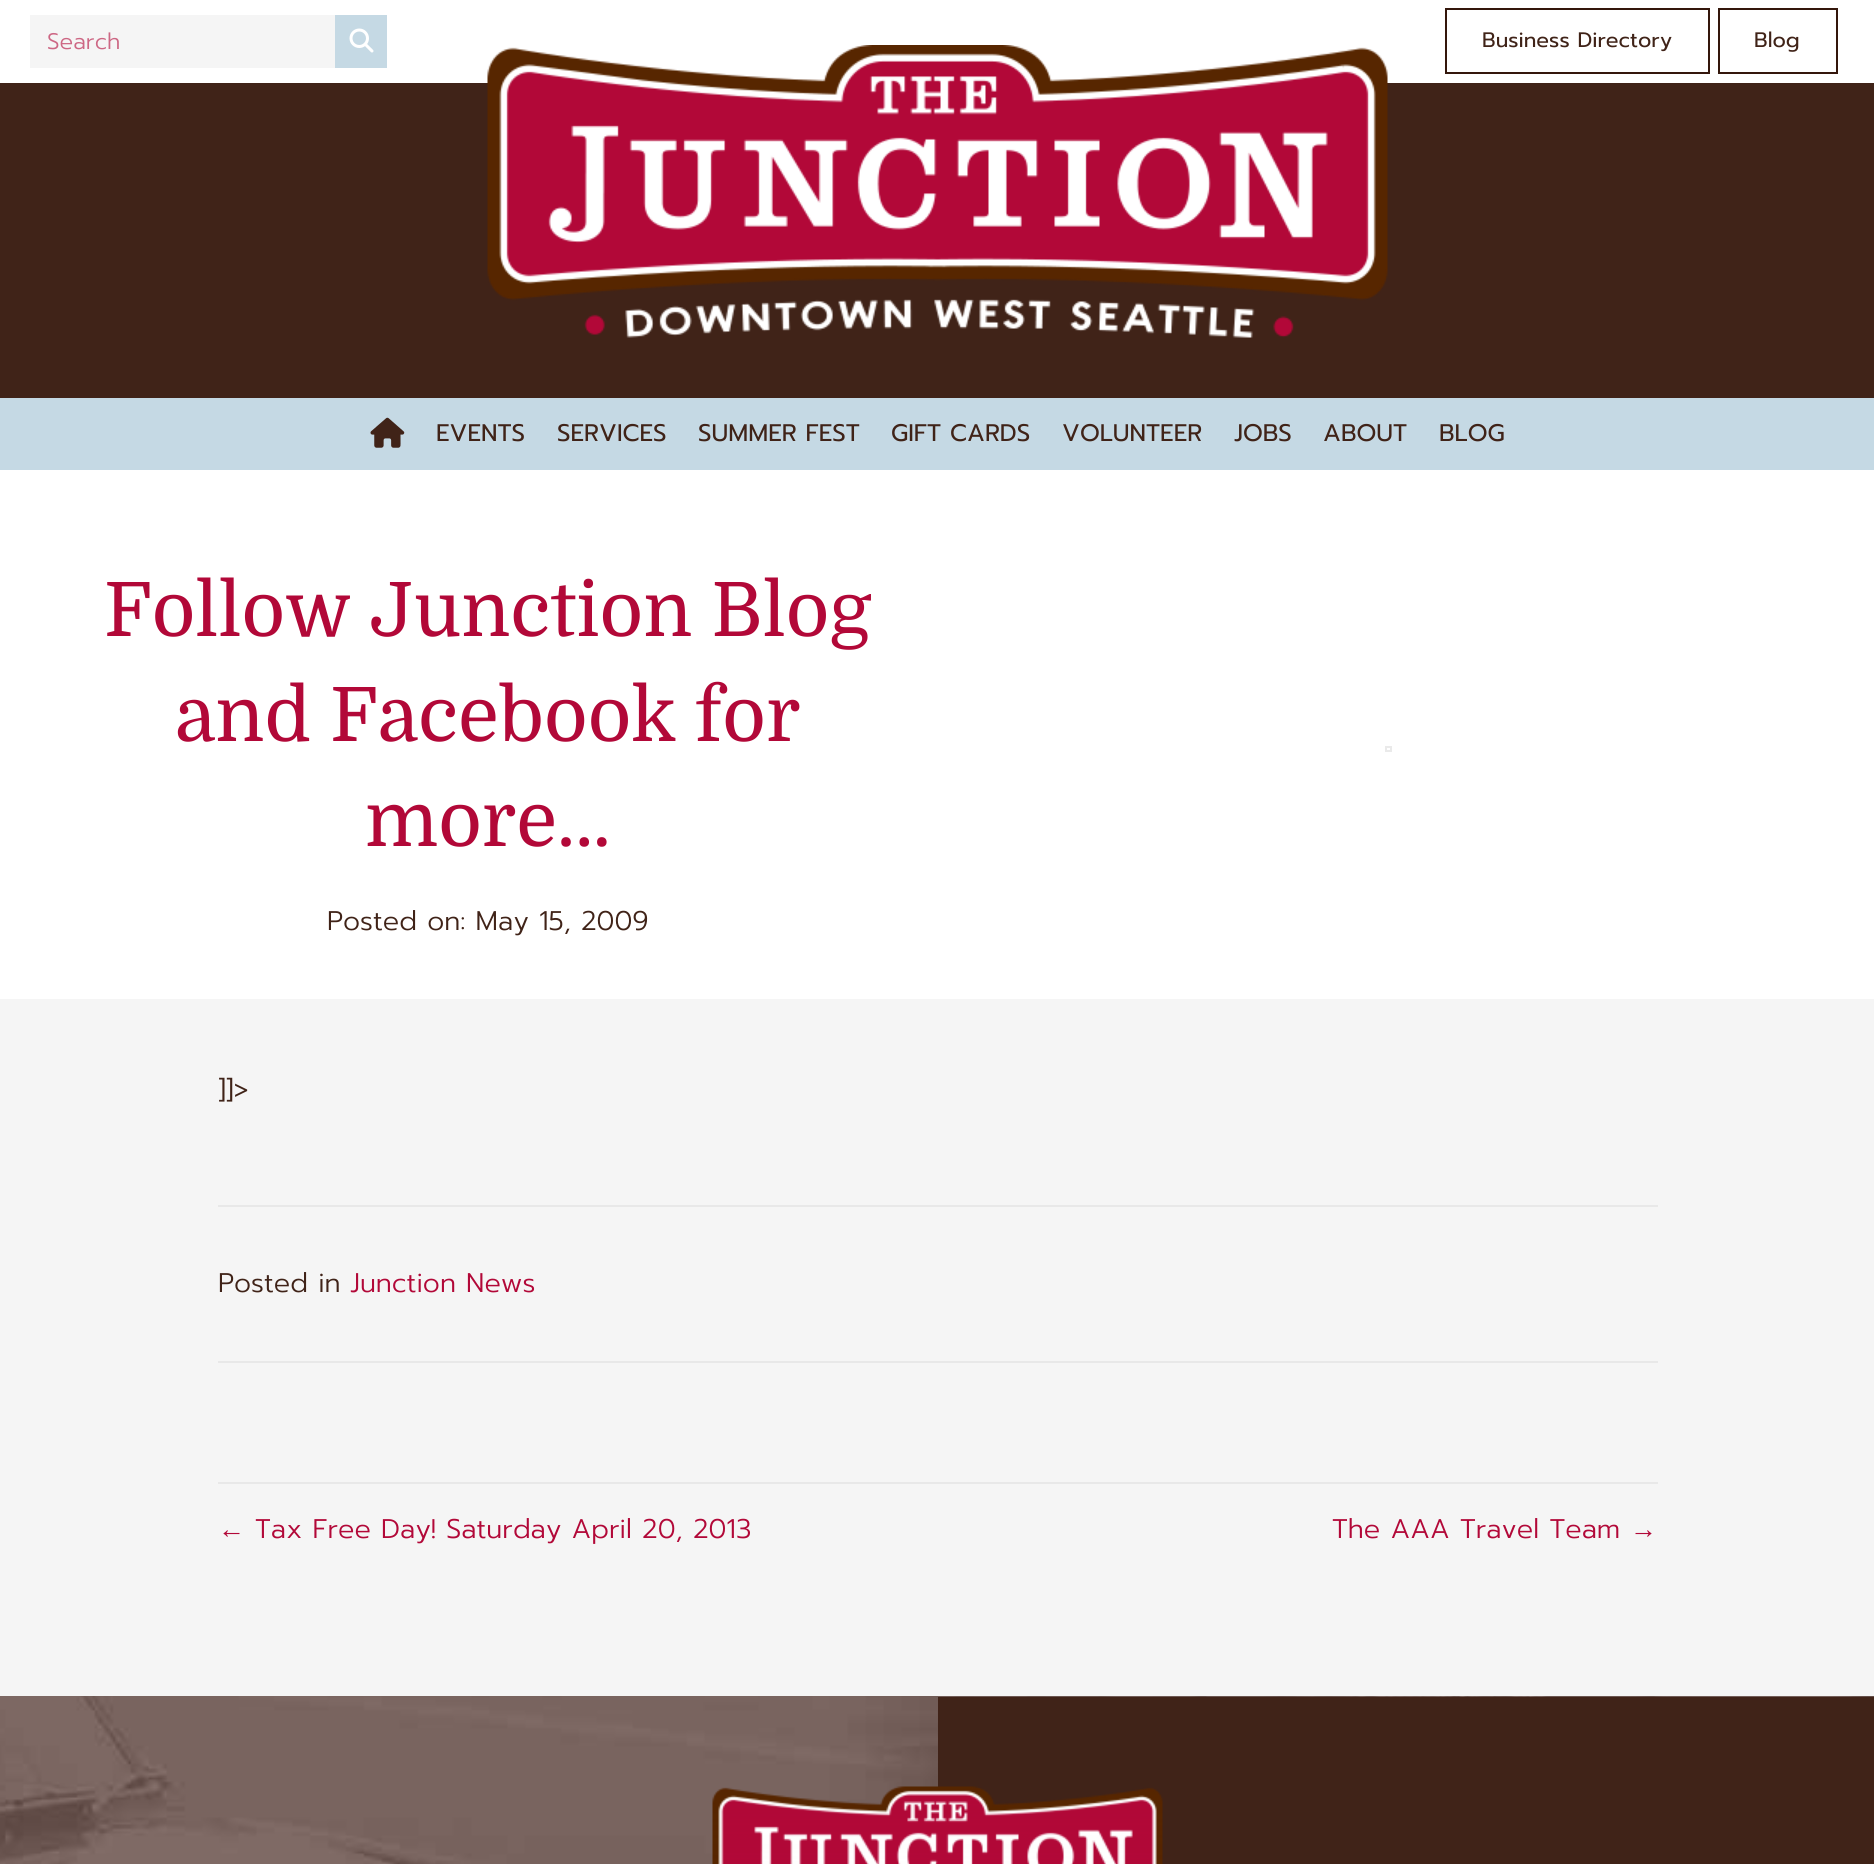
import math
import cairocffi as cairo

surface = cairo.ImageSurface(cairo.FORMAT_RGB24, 1874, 1864)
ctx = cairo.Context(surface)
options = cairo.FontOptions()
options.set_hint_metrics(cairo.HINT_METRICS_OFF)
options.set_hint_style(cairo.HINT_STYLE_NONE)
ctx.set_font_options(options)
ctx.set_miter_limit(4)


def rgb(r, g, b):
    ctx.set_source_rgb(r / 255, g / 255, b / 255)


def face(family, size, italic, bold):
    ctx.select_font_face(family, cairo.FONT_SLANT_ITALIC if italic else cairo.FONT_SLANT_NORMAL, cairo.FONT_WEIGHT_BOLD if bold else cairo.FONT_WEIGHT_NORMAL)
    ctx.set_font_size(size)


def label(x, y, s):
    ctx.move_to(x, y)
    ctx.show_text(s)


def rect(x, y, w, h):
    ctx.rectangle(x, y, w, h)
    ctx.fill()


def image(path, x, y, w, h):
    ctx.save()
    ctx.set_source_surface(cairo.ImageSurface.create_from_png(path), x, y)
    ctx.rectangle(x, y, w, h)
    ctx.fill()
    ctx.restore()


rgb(255, 255, 255)
ctx.paint()
rgb(245, 245, 245)
rect(30, 15, 305, 53)
face('Prompt Light', 22.5, 0, 0)
rgb(205, 103, 132)
label(47, 49, 'Search')
rgb(197, 217, 228)
rect(335, 15, 52, 53)
image('image0.png', 349, 28, 25, 25)
ctx.rectangle(1446, 9, 263, 64)
rgb(52, 23, 12)
ctx.stroke()
face('Prompt', 21, 0, 0)
rgb(64, 35, 24)
label(1482, 47, 'Business Directory')
ctx.rectangle(1719, 9, 118, 64)
rgb(52, 23, 12)
ctx.stroke()
rgb(64, 35, 24)
label(1754, 47, 'Blog')
rect(0, 83, 1874, 315)
image('image1.png', 487, 45, 901, 293)
rgb(197, 217, 228)
rect(0, 398, 1874, 72)
image('image2.png', 370, 417, 35, 31)
face('Prompt', 24, 0, 0)
rgb(64, 35, 24)
label(436, 441, 'EVENTS')
label(557, 441, 'SERVICES')
label(698, 441, 'SUMMER FEST')
label(891, 441, 'GIFT CARDS')
label(1062, 441, 'VOLUNTEER')
label(1234, 441, 'JOBS')
label(1323, 441, 'ABOUT')
label(1439, 441, 'BLOG')
face('Domine', 75, 0, 0)
rgb(178, 8, 56)
label(104, 636, 'Follow Junction Blog')
label(175, 741, 'and Facebook for')
label(365, 846, 'more…')
face('Prompt Light', 27, 0, 0)
rgb(64, 35, 24)
label(327, 930, 'Posted on: May 15, 2009')
ctx.rectangle(1386, 747, 5, 4)
rgb(234, 234, 234)
ctx.stroke()
rgb(245, 245, 245)
rect(0, 999, 1874, 697)
rgb(64, 35, 24)
label(218, 1099, ']]>')
rgb(232, 232, 232)
rect(218, 1205, 1440, 2)
rgb(64, 35, 24)
label(218, 1292, 'Posted in')
rgb(178, 8, 56)
label(350, 1292, 'Junction News')
rgb(232, 232, 232)
rect(218, 1361, 1440, 2)
rect(218, 1482, 1440, 2)
face('Liberation Sans', 27, 0, 0)
rgb(178, 8, 56)
label(218, 1538, '←')
face('Prompt Light', 27, 0, 0)
label(255, 1538, 'Tax Free Day! Saturday April 20, 2013')
label(1332, 1538, 'The AAA Travel Team')
face('Liberation Sans', 27, 0, 0)
label(1630, 1538, '→')
image('image3.png', 0, 1696, 1874, 168)
rgb(64, 35, 24)
rect(938, 1697, 936, 167)
image('image4.png', 712, 1786, 451, 78)
surface.write_to_png('render.png')
